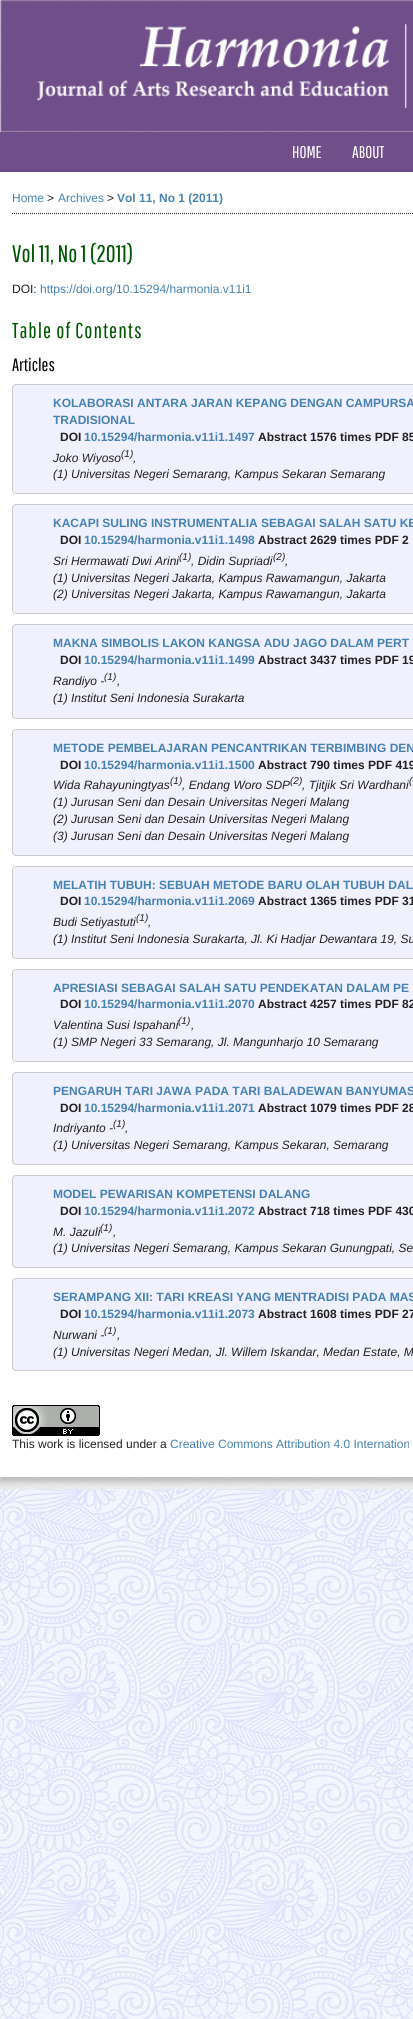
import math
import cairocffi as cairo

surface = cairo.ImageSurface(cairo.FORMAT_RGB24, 413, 2019)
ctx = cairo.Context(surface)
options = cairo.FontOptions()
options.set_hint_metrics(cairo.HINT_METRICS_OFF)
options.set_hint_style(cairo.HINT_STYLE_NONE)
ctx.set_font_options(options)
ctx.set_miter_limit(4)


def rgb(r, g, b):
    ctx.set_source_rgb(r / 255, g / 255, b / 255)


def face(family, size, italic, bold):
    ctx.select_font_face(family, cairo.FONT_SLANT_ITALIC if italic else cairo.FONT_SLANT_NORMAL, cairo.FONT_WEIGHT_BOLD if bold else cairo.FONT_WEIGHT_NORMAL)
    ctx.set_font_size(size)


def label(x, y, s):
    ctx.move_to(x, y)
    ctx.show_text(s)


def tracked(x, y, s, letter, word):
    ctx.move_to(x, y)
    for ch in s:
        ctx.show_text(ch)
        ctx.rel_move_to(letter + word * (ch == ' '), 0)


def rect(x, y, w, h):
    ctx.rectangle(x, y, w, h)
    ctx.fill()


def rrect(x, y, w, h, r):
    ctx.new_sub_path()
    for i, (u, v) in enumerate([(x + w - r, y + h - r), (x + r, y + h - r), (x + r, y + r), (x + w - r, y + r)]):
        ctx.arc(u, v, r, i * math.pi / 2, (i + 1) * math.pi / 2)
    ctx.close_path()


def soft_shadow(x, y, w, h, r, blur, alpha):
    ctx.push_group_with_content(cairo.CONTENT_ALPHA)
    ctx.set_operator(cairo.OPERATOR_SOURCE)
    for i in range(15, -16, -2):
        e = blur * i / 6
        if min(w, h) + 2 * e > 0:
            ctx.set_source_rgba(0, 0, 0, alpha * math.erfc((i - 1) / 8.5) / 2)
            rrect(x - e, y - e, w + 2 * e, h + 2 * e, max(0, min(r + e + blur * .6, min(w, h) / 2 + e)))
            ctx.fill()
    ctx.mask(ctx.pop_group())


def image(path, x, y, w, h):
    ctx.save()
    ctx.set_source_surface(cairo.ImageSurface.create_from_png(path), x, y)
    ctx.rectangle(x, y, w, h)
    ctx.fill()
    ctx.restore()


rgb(255, 255, 255)
ctx.paint()
image('image0.png', 0, 1489, 413, 530)
image('image1.png', 0, 0, 413, 1489)
image('image2.png', 0, 0, 413, 132)
rgb(187, 187, 187)
soft_shadow(0, 137, 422, 1345, 0, 3, 1)
rgb(255, 255, 255)
rect(0, 172, 413, 1305)
rgb(112, 78, 137)
rect(0, 132, 413, 40)
face('Pathway Gothic One', 17, 0, 0)
rgb(255, 255, 255)
label(292, 158, 'HOME')
label(352, 158, 'ABOUT')
ctx.new_path()
ctx.move_to(12, 213.5)
ctx.line_to(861, 213.5)
rgb(51, 51, 51)
ctx.set_line_width(1)
ctx.set_dash([1, 1])
ctx.stroke()
face('Liberation Sans', 12, 0, 0)
rgb(70, 130, 180)
label(12, 202, 'Home')
rgb(34, 34, 34)
label(47, 202, '>')
rgb(70, 130, 180)
label(58, 202, 'Archives')
rgb(34, 34, 34)
label(107, 202, '>')
face('Liberation Sans', 12, 0, 1)
rgb(70, 130, 180)
label(117, 202, 'Vol 11, No 1 (2011)')
face('Pathway Gothic One', 24, 0, 0)
rgb(0, 86, 0)
label(12, 262, 'Vol 11, No 1 (2011)')
face('Liberation Sans', 12, 0, 0)
rgb(34, 34, 34)
label(12, 293, 'DOI:')
rgb(70, 130, 180)
label(40, 293, 'https://doi.org/10.15294/harmonia.v11i1')
face('Pathway Gothic One', 21.5, 0, 0)
rgb(0, 86, 0)
tracked(12, 338, 'Table of Contents', 1, 0)
face('Pathway Gothic One', 18, 0, 0)
rgb(0, 0, 0)
label(12, 371, 'Articles')
rgb(240, 240, 255)
rrect(12.5, 384.5, 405, 109, 3.5)
ctx.fill_preserve()
rgb(204, 204, 204)
ctx.set_dash([])
ctx.stroke()
face('Liberation Sans', 12, 0, 1)
rgb(70, 130, 180)
label(53, 407, 'KOLABORASI ANTARA JARAN KEPANG DENGAN CAMPURSA')
label(53, 424, 'TRADISIONAL')
rgb(34, 34, 34)
label(60, 441, 'DOI')
rgb(70, 130, 180)
label(84, 441, '10.15294/harmonia.v11i1.1497')
rgb(34, 34, 34)
label(258, 441, 'Abstract 1576 times PDF 85')
face('Liberation Sans', 12, 1, 0)
label(53, 462, 'Joko Wiyoso')
face('Liberation Sans', 10, 1, 0)
label(121, 457, '(1)')
face('Liberation Sans', 12, 1, 0)
label(133, 462, ',')
label(53, 478, '(1) Universitas Negeri Semarang, Kampus Sekaran Semarang')
rgb(240, 240, 255)
rrect(12.5, 504.5, 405, 109, 3.5)
ctx.fill_preserve()
rgb(204, 204, 204)
ctx.stroke()
face('Liberation Sans', 12, 0, 1)
rgb(70, 130, 180)
label(53, 527, 'KACAPI SULING INSTRUMENTALIA SEBAGAI SALAH SATU KE')
rgb(34, 34, 34)
label(60, 544, 'DOI')
rgb(70, 130, 180)
label(84, 544, '10.15294/harmonia.v11i1.1498')
rgb(34, 34, 34)
label(258, 544, 'Abstract 2629 times PDF 2')
face('Liberation Sans', 12, 1, 0)
label(53, 565, 'Sri Hermawati Dwi Arini')
face('Liberation Sans', 10, 1, 0)
label(179, 560, '(1)')
face('Liberation Sans', 12, 1, 0)
label(191, 565, ', Didin Supriadi')
face('Liberation Sans', 10, 1, 0)
label(273, 560, '(2)')
face('Liberation Sans', 12, 1, 0)
label(285, 565, ',')
label(53, 582, '(1) Universitas Negeri Jakarta, Kampus Rawamangun, Jakarta')
label(53, 598, '(2) Universitas Negeri Jakarta, Kampus Rawamangun, Jakarta')
rgb(240, 240, 255)
rrect(12.5, 624.5, 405, 94, 3.5)
ctx.fill_preserve()
rgb(204, 204, 204)
ctx.stroke()
face('Liberation Sans', 12, 0, 1)
rgb(70, 130, 180)
label(53, 647, 'MAKNA SIMBOLIS LAKON KANGSA ADU JAGO DALAM PERT')
rgb(34, 34, 34)
label(60, 664, 'DOI')
rgb(70, 130, 180)
label(84, 664, '10.15294/harmonia.v11i1.1499')
rgb(34, 34, 34)
label(258, 664, 'Abstract 3437 times PDF 19')
face('Liberation Sans', 12, 1, 0)
label(53, 685, 'Randiyo -')
face('Liberation Sans', 10, 1, 0)
label(104, 680, '(1)')
face('Liberation Sans', 12, 1, 0)
label(117, 685, ',')
label(53, 702, '(1) Institut Seni Indonesia Surakarta')
rgb(240, 240, 255)
rrect(12.5, 729.5, 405, 126, 3.5)
ctx.fill_preserve()
rgb(204, 204, 204)
ctx.stroke()
face('Liberation Sans', 12, 0, 1)
rgb(70, 130, 180)
label(53, 752, 'METODE PEMBELAJARAN PENCANTRIKAN TERBIMBING DEN')
rgb(34, 34, 34)
label(60, 769, 'DOI')
rgb(70, 130, 180)
label(84, 769, '10.15294/harmonia.v11i1.1500')
rgb(34, 34, 34)
label(258, 769, 'Abstract 790 times PDF 419')
face('Liberation Sans', 12, 1, 0)
label(53, 789, 'Wida Rahayuningtyas')
face('Liberation Sans', 10, 1, 0)
label(170, 784, '(1)')
face('Liberation Sans', 12, 1, 0)
label(182, 789, ', Endang Woro SDP')
face('Liberation Sans', 10, 1, 0)
label(290, 784, '(2)')
face('Liberation Sans', 12, 1, 0)
label(302, 789, ', Tjitjik Sri Wardhani')
face('Liberation Sans', 10, 1, 0)
label(409, 784, '(')
face('Liberation Sans', 12, 1, 0)
label(53, 806, '(1) Jurusan Seni dan Desain Universitas Negeri Malang')
label(53, 823, '(2) Jurusan Seni dan Desain Universitas Negeri Malang')
label(53, 840, '(3) Jurusan Seni dan Desain Universitas Negeri Malang')
rgb(240, 240, 255)
rrect(12.5, 866.5, 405, 92, 3.5)
ctx.fill_preserve()
rgb(204, 204, 204)
ctx.stroke()
face('Liberation Sans', 12, 0, 1)
rgb(70, 130, 180)
label(53, 889, 'MELATIH TUBUH: SEBUAH METODE BARU OLAH TUBUH DAL')
rgb(34, 34, 34)
label(60, 905, 'DOI')
rgb(70, 130, 180)
label(84, 905, '10.15294/harmonia.v11i1.2069')
rgb(34, 34, 34)
label(258, 905, 'Abstract 1365 times PDF 31')
face('Liberation Sans', 12, 1, 0)
label(53, 926, 'Budi Setiyastuti')
face('Liberation Sans', 10, 1, 0)
label(136, 921, '(1)')
face('Liberation Sans', 12, 1, 0)
label(148, 926, ',')
label(53, 943, '(1) Institut Seni Indonesia Surakarta, Jl. Ki Hadjar Dewantara 19, Su')
rgb(240, 240, 255)
rrect(12.5, 969.5, 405, 92, 3.5)
ctx.fill_preserve()
rgb(204, 204, 204)
ctx.stroke()
face('Liberation Sans', 12, 0, 1)
rgb(70, 130, 180)
label(53, 992, 'APRESIASI SEBAGAI SALAH SATU PENDEKATAN DALAM PE')
rgb(34, 34, 34)
label(60, 1008, 'DOI')
rgb(70, 130, 180)
label(84, 1008, '10.15294/harmonia.v11i1.2070')
rgb(34, 34, 34)
label(258, 1008, 'Abstract 4257 times PDF 82')
face('Liberation Sans', 12, 1, 0)
label(53, 1029, 'Valentina Susi Ispahani')
face('Liberation Sans', 10, 1, 0)
label(178, 1024, '(1)')
face('Liberation Sans', 12, 1, 0)
label(191, 1029, ',')
label(53, 1046, '(1) SMP Negeri 33 Semarang, Jl. Mangunharjo 10 Semarang')
rgb(240, 240, 255)
rrect(12.5, 1072.5, 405, 92, 3.5)
ctx.fill_preserve()
rgb(204, 204, 204)
ctx.stroke()
face('Liberation Sans', 12, 0, 1)
rgb(70, 130, 180)
label(53, 1095, 'PENGARUH TARI JAWA PADA TARI BALADEWAN BANYUMAS')
rgb(34, 34, 34)
label(60, 1112, 'DOI')
rgb(70, 130, 180)
label(84, 1112, '10.15294/harmonia.v11i1.2071')
rgb(34, 34, 34)
label(258, 1112, 'Abstract 1079 times PDF 28')
face('Liberation Sans', 12, 1, 0)
label(53, 1132, 'Indriyanto -')
face('Liberation Sans', 10, 1, 0)
label(113, 1127, '(1)')
face('Liberation Sans', 12, 1, 0)
label(125, 1132, ',')
label(53, 1149, '(1) Universitas Negeri Semarang, Kampus Sekaran, Semarang')
rgb(240, 240, 255)
rrect(12.5, 1175.5, 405, 92, 3.5)
ctx.fill_preserve()
rgb(204, 204, 204)
ctx.stroke()
face('Liberation Sans', 12, 0, 1)
rgb(70, 130, 180)
label(53, 1198, 'MODEL PEWARISAN KOMPETENSI DALANG')
rgb(34, 34, 34)
label(60, 1215, 'DOI')
rgb(70, 130, 180)
label(84, 1215, '10.15294/harmonia.v11i1.2072')
rgb(34, 34, 34)
label(258, 1215, 'Abstract 718 times PDF 430')
face('Liberation Sans', 12, 1, 0)
label(53, 1236, 'M. Jazuli')
face('Liberation Sans', 10, 1, 0)
label(100, 1231, '(1)')
face('Liberation Sans', 12, 1, 0)
label(113, 1236, ',')
label(53, 1252, '(1) Universitas Negeri Semarang, Kampus Sekaran Gunungpati, Se')
rgb(240, 240, 255)
rrect(12.5, 1278.5, 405, 92, 3.5)
ctx.fill_preserve()
rgb(204, 204, 204)
ctx.stroke()
face('Liberation Sans', 12, 0, 1)
rgb(70, 130, 180)
label(53, 1301, 'SERAMPANG XII: TARI KREASI YANG MENTRADISI PADA MAS')
rgb(34, 34, 34)
label(60, 1318, 'DOI')
rgb(70, 130, 180)
label(84, 1318, '10.15294/harmonia.v11i1.2073')
rgb(34, 34, 34)
label(258, 1318, 'Abstract 1608 times PDF 27')
face('Liberation Sans', 12, 1, 0)
label(53, 1339, 'Nurwani -')
face('Liberation Sans', 10, 1, 0)
label(104, 1334, '(1)')
face('Liberation Sans', 12, 1, 0)
label(117, 1339, ',')
label(53, 1356, '(1) Universitas Negeri Medan, Jl. Willem Iskandar, Medan Estate, M')
image('image3.png', 12, 1405, 88, 31)
face('Liberation Sans', 12, 0, 0)
label(12, 1448, 'This work is licensed under a')
rgb(70, 130, 180)
label(170, 1448, 'Creative Commons Attribution 4.0 Internation')
surface.write_to_png('render.png')
